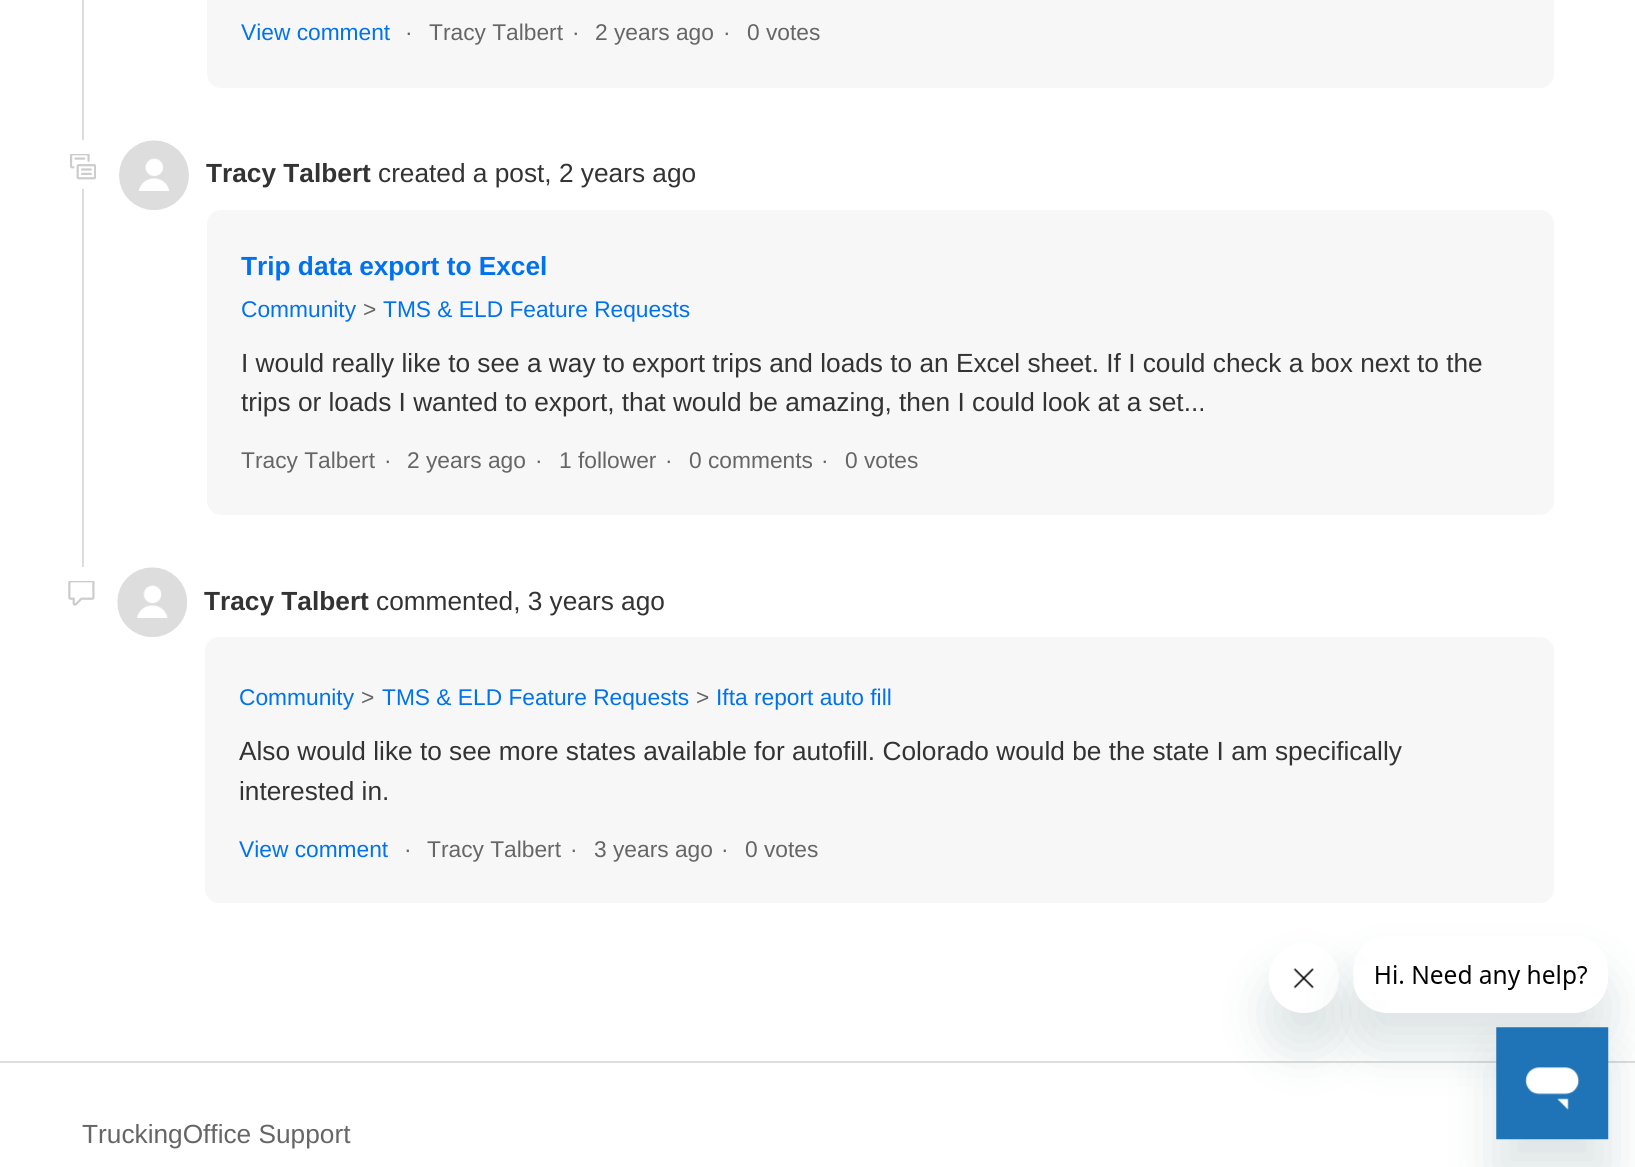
import math
import cairocffi as cairo

surface = cairo.ImageSurface(cairo.FORMAT_RGB24, 1635, 1167)
ctx = cairo.Context(surface)
options = cairo.FontOptions()
options.set_hint_metrics(cairo.HINT_METRICS_OFF)
options.set_hint_style(cairo.HINT_STYLE_NONE)
ctx.set_font_options(options)
ctx.set_miter_limit(4)


def rgb(r, g, b):
    ctx.set_source_rgb(r / 255, g / 255, b / 255)


def face(family, size, italic, bold):
    ctx.select_font_face(family, cairo.FONT_SLANT_ITALIC if italic else cairo.FONT_SLANT_NORMAL, cairo.FONT_WEIGHT_BOLD if bold else cairo.FONT_WEIGHT_NORMAL)
    ctx.set_font_size(size)


def label(x, y, s):
    ctx.move_to(x, y)
    ctx.show_text(s)


def rect(x, y, w, h):
    ctx.rectangle(x, y, w, h)
    ctx.fill()


def rrect(x, y, w, h, r):
    ctx.new_sub_path()
    for i, (u, v) in enumerate([(x + w - r, y + h - r), (x + r, y + h - r), (x + r, y + r), (x + w - r, y + r)]):
        ctx.arc(u, v, r, i * math.pi / 2, (i + 1) * math.pi / 2)
    ctx.close_path()


def soft_shadow(x, y, w, h, r, blur, alpha):
    ctx.push_group_with_content(cairo.CONTENT_ALPHA)
    ctx.set_operator(cairo.OPERATOR_SOURCE)
    for i in range(15, -16, -2):
        e = blur * i / 6
        if min(w, h) + 2 * e > 0:
            ctx.set_source_rgba(0, 0, 0, alpha * math.erfc((i - 1) / 8.5) / 2)
            rrect(x - e, y - e, w + 2 * e, h + 2 * e, max(0, min(r + e + blur * .6, min(w, h) / 2 + e)))
            ctx.fill()
    ctx.mask(ctx.pop_group())


def image(path, x, y, w, h):
    ctx.save()
    ctx.set_source_surface(cairo.ImageSurface.create_from_png(path), x, y)
    ctx.rectangle(x, y, w, h)
    ctx.fill()
    ctx.restore()


rgb(255, 255, 255)
ctx.paint()
rgb(221, 221, 221)
rect(82, 0, 2, 567)
rgb(247, 247, 247)
rrect(207, -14, 1347, 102, 14)
ctx.fill()
face('Liberation Sans', 22.75, 0, 0)
rgb(0, 114, 239)
label(241, 40, 'View comment')
rgb(102, 102, 102)
label(405, 40, '·')
label(429, 40, 'Tracy Talbert')
label(572, 40, '·')
label(595, 40, '2 years ago')
label(723, 40, '·')
label(747, 40, '0 votes')
rgb(255, 255, 255)
ctx.new_path()
ctx.arc(84.5, 164.5, 24.5, 0, 2 * math.pi)
ctx.fill()
image('image0.png', 70, 154, 26, 26)
image('image1.png', 119, 140, 70, 70)
face('Liberation Sans', 26.25, 0, 1)
rgb(51, 51, 51)
label(206, 182, 'Tracy Talbert')
face('Liberation Sans', 26.25, 0, 0)
label(378, 182, 'created a post, 2 years ago')
rgb(247, 247, 247)
rrect(207, 210, 1347, 305, 14)
ctx.fill()
face('Liberation Sans', 26.25, 0, 1)
rgb(0, 114, 239)
label(241, 275, 'Trip data export to Excel')
face('Liberation Sans', 22.75, 0, 0)
label(241, 317, 'Community')
rgb(102, 102, 102)
label(363, 317, '>')
rgb(0, 114, 239)
label(383, 317, 'TMS & ELD Feature Requests')
face('Liberation Sans', 26.25, 0, 0)
rgb(51, 51, 51)
label(241, 372, 'I would really like to see a way to export trips and loads to an Excel sheet. If I could check a box next to the')
label(241, 411, 'trips or loads I wanted to export, that would be amazing, then I could look at a set...')
face('Liberation Sans', 22.75, 0, 0)
rgb(102, 102, 102)
label(241, 468, 'Tracy Talbert')
label(384, 468, '·')
label(407, 468, '2 years ago')
label(535, 468, '·')
label(559, 468, '1 follower')
label(665, 468, '·')
label(689, 468, '0 comments')
label(821, 468, '·')
label(845, 468, '0 votes')
image('image2.png', 68, 581, 27, 25)
image('image3.png', 117, 567, 70, 70)
face('Liberation Sans', 26.25, 0, 1)
rgb(51, 51, 51)
label(204, 610, 'Tracy Talbert')
face('Liberation Sans', 26.25, 0, 0)
label(376, 610, 'commented, 3 years ago')
rgb(247, 247, 247)
rrect(205, 637, 1349, 266, 14)
ctx.fill()
face('Liberation Sans', 22.75, 0, 0)
rgb(0, 114, 239)
label(239, 705, 'Community')
rgb(102, 102, 102)
label(361, 705, '>')
rgb(0, 114, 239)
label(382, 705, 'TMS & ELD Feature Requests')
rgb(102, 102, 102)
label(696, 705, '>')
rgb(0, 114, 239)
label(716, 705, 'Ifta report auto fill')
face('Liberation Sans', 26.25, 0, 0)
rgb(51, 51, 51)
label(239, 760, 'Also would like to see more states available for autofill. Colorado would be the state I am specifically')
label(239, 800, 'interested in.')
face('Liberation Sans', 22.75, 0, 0)
rgb(0, 114, 239)
label(239, 857, 'View comment')
rgb(102, 102, 102)
label(404, 857, '·')
label(427, 857, 'Tracy Talbert')
label(570, 857, '·')
label(594, 857, '3 years ago')
label(721, 857, '·')
label(745, 857, '0 votes')
rgb(221, 221, 221)
rect(0, 1061, 1635, 2)
face('Liberation Sans', 26.25, 0, 0)
rgb(102, 102, 102)
label(82, 1143, 'TruckingOffice Support')
ctx.save()
ctx.set_fill_rule(cairo.FILL_RULE_EVEN_ODD)
ctx.new_path()
ctx.move_to(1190, 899)
ctx.line_to(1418, 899)
ctx.line_to(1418, 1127)
ctx.line_to(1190, 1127)
ctx.close_path()
ctx.move_to(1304, 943)
ctx.curve_to(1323.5, 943, 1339, 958.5, 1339, 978)
ctx.curve_to(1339, 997.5, 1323.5, 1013, 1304, 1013)
ctx.curve_to(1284.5, 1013, 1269, 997.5, 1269, 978)
ctx.curve_to(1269, 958.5, 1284.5, 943, 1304, 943)
ctx.close_path()
ctx.clip()
rgb(23, 73, 77)
soft_shadow(1269, 978, 70, 70, 35, 26, 0.15)
ctx.restore()
image('image5.png', 1293, 968, 21, 21)
ctx.save()
ctx.set_fill_rule(cairo.FILL_RULE_EVEN_ODD)
ctx.new_path()
ctx.move_to(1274, 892)
ctx.line_to(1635, 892)
ctx.line_to(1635, 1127)
ctx.line_to(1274, 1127)
ctx.close_path()
ctx.move_to(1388, 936)
ctx.line_to(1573, 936)
ctx.curve_to(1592.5, 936, 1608, 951.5, 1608, 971)
ctx.line_to(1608, 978)
ctx.curve_to(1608, 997.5, 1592.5, 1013, 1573, 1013)
ctx.line_to(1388, 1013)
ctx.curve_to(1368.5, 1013, 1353, 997.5, 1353, 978)
ctx.line_to(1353, 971)
ctx.curve_to(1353, 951.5, 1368.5, 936, 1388, 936)
ctx.close_path()
ctx.clip()
rgb(23, 73, 77)
soft_shadow(1353, 971, 255, 77, 35, 26, 0.15)
ctx.restore()
image('image4.png', 1354, 965, 233, 35)
rgb(23, 73, 77)
soft_shadow(1496, 1062, 112, 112, 0, 26, 0.15)
image('image6.png', 1496, 1027, 113, 113)
surface.write_to_png('render.png')
